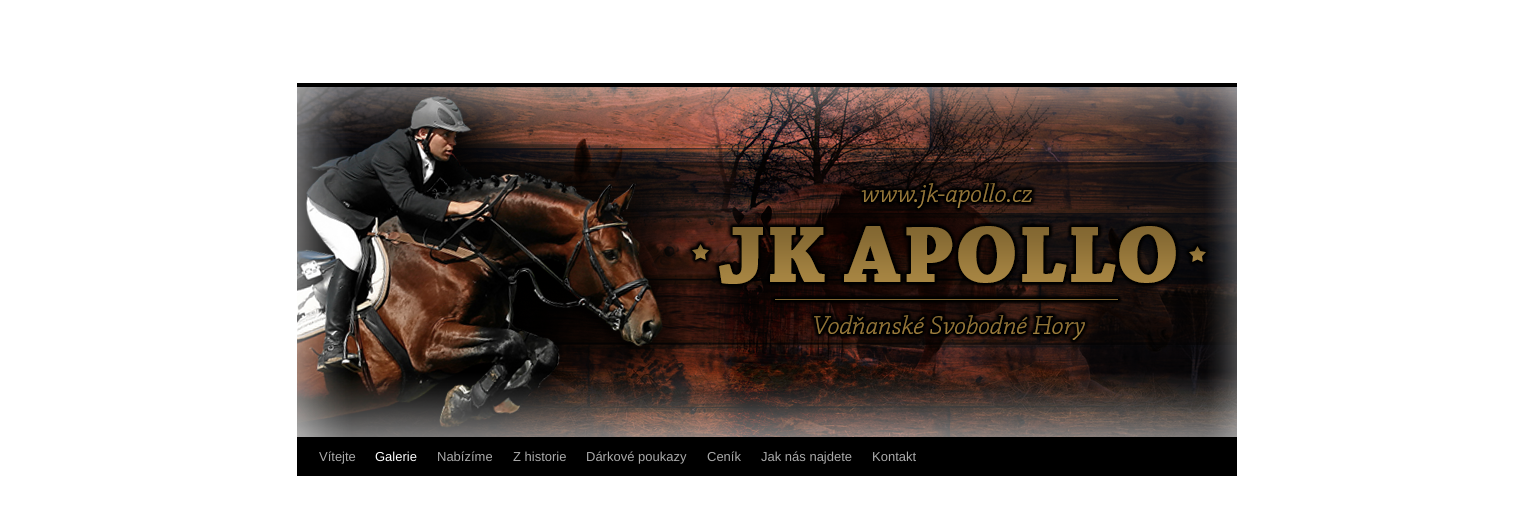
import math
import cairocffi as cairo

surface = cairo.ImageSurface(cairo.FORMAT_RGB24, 1533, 508)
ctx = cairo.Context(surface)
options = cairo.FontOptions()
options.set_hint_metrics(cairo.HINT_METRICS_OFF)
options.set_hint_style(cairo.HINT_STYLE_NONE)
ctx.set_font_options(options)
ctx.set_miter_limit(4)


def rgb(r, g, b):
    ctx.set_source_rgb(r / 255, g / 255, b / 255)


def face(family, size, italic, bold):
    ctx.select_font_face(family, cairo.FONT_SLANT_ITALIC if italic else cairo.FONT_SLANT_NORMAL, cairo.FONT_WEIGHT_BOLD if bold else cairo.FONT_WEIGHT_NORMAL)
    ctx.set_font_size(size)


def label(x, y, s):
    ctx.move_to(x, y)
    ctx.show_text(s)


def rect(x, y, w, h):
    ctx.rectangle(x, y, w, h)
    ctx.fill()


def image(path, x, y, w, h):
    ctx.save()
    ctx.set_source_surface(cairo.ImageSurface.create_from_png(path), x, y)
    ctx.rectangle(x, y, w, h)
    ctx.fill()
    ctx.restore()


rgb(255, 255, 255)
ctx.paint()
rgb(0, 0, 0)
rect(297, 83, 940, 4)
rect(297, 437, 940, 39)
image('image0.png', 297, 87, 940, 350)
face('Liberation Sans', 13, 0, 0)
rgb(170, 170, 170)
label(319, 461, 'Vítejte')
rgb(255, 255, 255)
label(375, 461, 'Galerie')
rgb(170, 170, 170)
label(437, 461, 'Nabízíme')
label(513, 461, 'Z historie')
label(586, 461, 'Dárkové poukazy')
label(707, 461, 'Ceník')
label(761, 461, 'Jak nás najdete')
label(872, 461, 'Kontakt')
surface.write_to_png('render.png')
